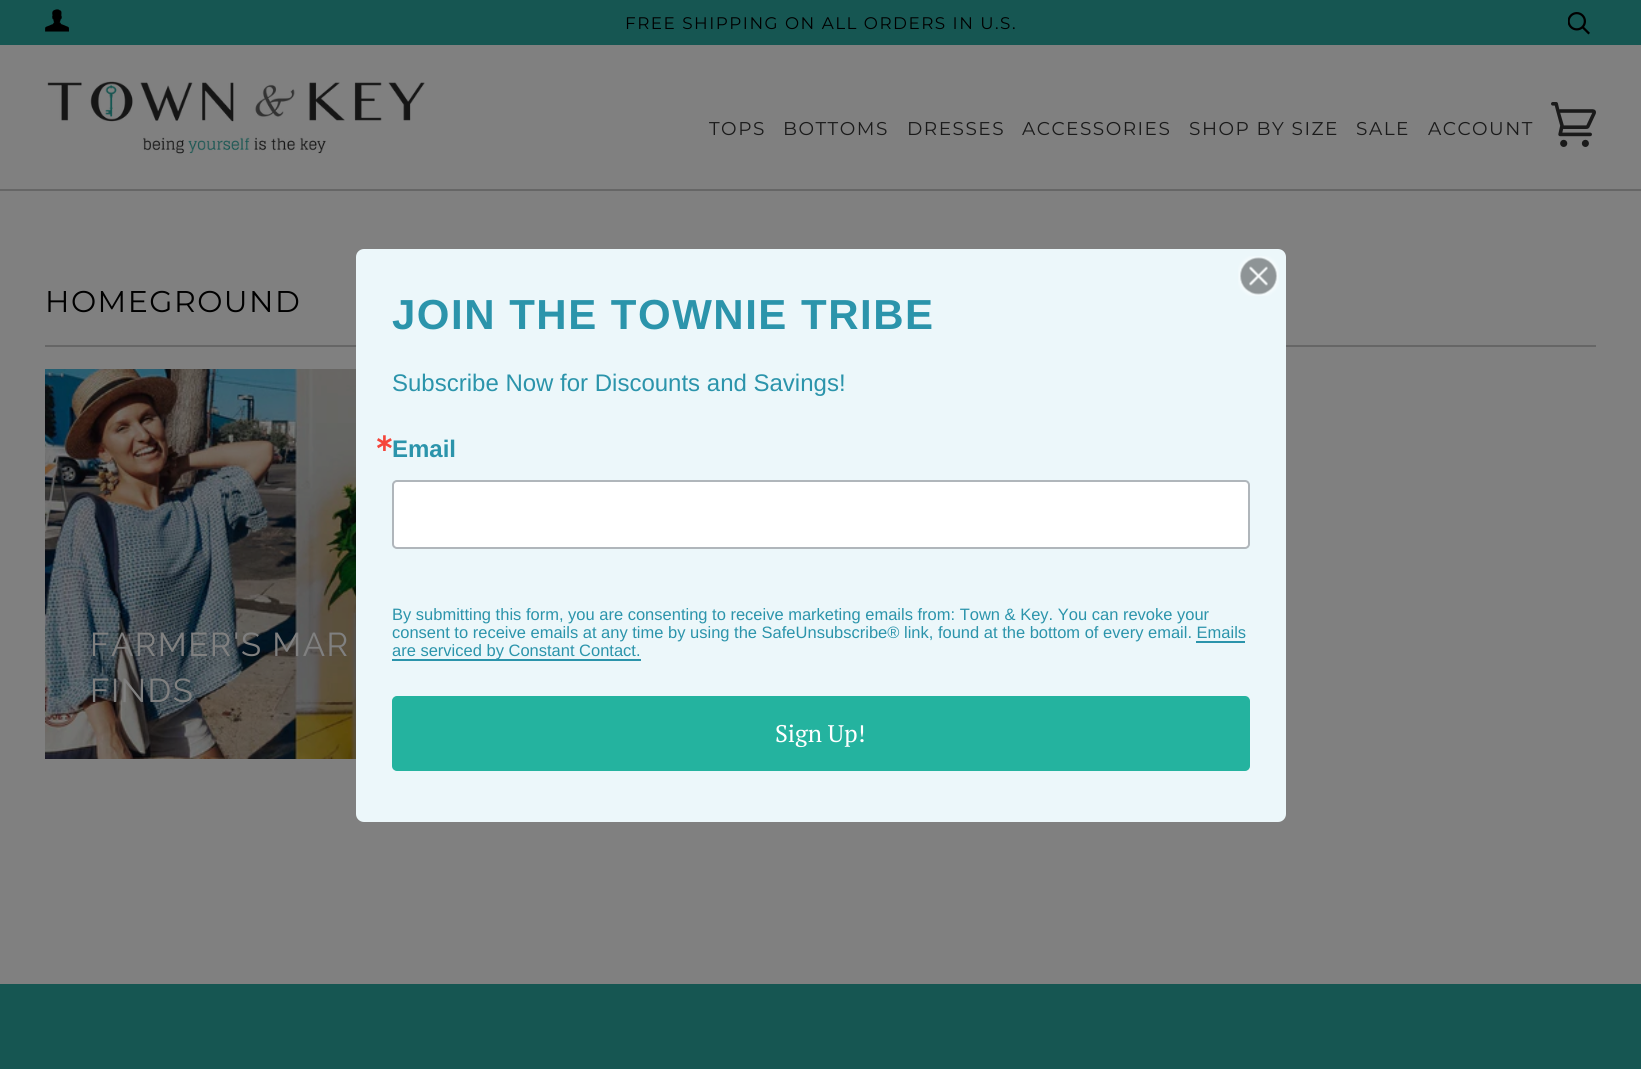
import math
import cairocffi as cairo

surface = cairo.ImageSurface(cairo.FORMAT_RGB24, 1641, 1069)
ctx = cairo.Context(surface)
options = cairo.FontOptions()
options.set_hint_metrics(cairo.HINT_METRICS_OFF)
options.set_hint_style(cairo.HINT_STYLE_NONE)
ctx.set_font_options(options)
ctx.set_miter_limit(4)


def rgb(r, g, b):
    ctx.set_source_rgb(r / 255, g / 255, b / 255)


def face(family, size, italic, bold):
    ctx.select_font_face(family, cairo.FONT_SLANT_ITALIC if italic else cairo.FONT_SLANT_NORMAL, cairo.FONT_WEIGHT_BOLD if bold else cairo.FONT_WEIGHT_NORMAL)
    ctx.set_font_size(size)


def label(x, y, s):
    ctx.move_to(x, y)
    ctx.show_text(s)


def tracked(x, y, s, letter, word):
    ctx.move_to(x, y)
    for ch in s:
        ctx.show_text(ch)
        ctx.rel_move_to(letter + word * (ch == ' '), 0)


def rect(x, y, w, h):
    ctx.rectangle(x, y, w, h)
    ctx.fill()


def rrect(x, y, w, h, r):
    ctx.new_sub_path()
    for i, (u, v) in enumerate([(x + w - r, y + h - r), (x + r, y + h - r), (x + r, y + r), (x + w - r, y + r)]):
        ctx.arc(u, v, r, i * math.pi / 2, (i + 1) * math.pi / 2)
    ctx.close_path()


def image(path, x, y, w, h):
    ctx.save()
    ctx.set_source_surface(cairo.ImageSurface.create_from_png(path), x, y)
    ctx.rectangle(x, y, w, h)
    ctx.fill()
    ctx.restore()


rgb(128, 128, 128)
ctx.paint()
rgb(22, 86, 82)
rect(0, 0, 1641, 45)
image('image0.png', 45, 9, 24, 23)
face('Montserrat Thin', 16.8, 0, 0)
rgb(0, 0, 0)
tracked(625, 29, 'FREE SHIPPING ON ALL ORDERS IN U.S.', 1.5, 0)
image('image1.png', 1568, 12, 22, 23)
rgb(102, 102, 102)
rect(0, 189, 1641, 2)
image('image2.png', 47, 81, 378, 73)
face('Montserrat Thin', 18.5, 0, 0)
rgb(26, 26, 26)
tracked(709, 135, 'TOPS', 1.5, 0)
tracked(783, 135, 'BOTTOMS', 1.5, 0)
tracked(907, 135, 'DRESSES', 1.5, 0)
tracked(1022, 135, 'ACCESSORIES', 1.5, 0)
tracked(1189, 135, 'SHOP BY SIZE', 1.5, 0)
tracked(1356, 135, 'SALE', 1.5, 0)
tracked(1428, 135, 'ACCOUNT', 1.5, 0)
image('image3.png', 1551, 102, 45, 45)
face('Montserrat Thin', 30, 0, 0)
rgb(0, 0, 0)
tracked(45, 312, 'HOMEGROUND', 1.5, 0)
rgb(102, 102, 102)
rect(45, 345, 1551, 2)
image('image4.png', 45, 369, 311, 390)
face('Raleway Thin', 33, 0, 0)
rgb(128, 128, 128)
tracked(90, 656, 'FARMER\'S MAR', 1.5, 0)
tracked(90, 702, 'FINDS', 1.5, 0)
rgb(236, 247, 250)
rrect(356, 249, 930, 573, 8)
ctx.fill()
image('image5.png', 1238, 256, 41, 40)
face('Liberation Sans', 42, 0, 1)
rgb(43, 148, 171)
tracked(392, 329, 'JOIN THE TOWNIE TRIBE', 1.5, 0)
face('Liberation Sans', 24, 0, 0)
label(392, 391, 'Subscribe Now for Discounts and Savings!')
face('DejaVu Sans', 24, 0, 1)
rgb(245, 70, 59)
label(374, 451, '∗')
face('Liberation Sans', 24, 0, 1)
rgb(43, 148, 171)
label(392, 457, 'Email')
rgb(255, 255, 255)
rrect(393, 481, 856, 67, 4)
ctx.fill_preserve()
rgb(176, 182, 187)
ctx.stroke()
face('Liberation Sans', 16.5, 0, 0)
rgb(43, 148, 171)
label(392, 620, 'By submitting this form, you are consenting to receive marketing emails from: Town & Key. You can revoke your')
label(392, 638, 'consent to receive emails at any time by using the SafeUnsubscribe® link, found at the bottom of every email. Emails')
rect(392, 659, 249, 2)
label(392, 656, 'are serviced by Constant Contact.')
rect(1196, 641, 49, 2)
rgb(36, 179, 159)
rrect(393, 697, 856, 73, 4)
ctx.fill_preserve()
ctx.stroke()
face('PT Serif', 24, 0, 0)
rgb(255, 255, 255)
label(775, 742, 'Sign Up!')
rgb(22, 86, 82)
rect(0, 984, 1641, 85)
surface.write_to_png('render.png')
